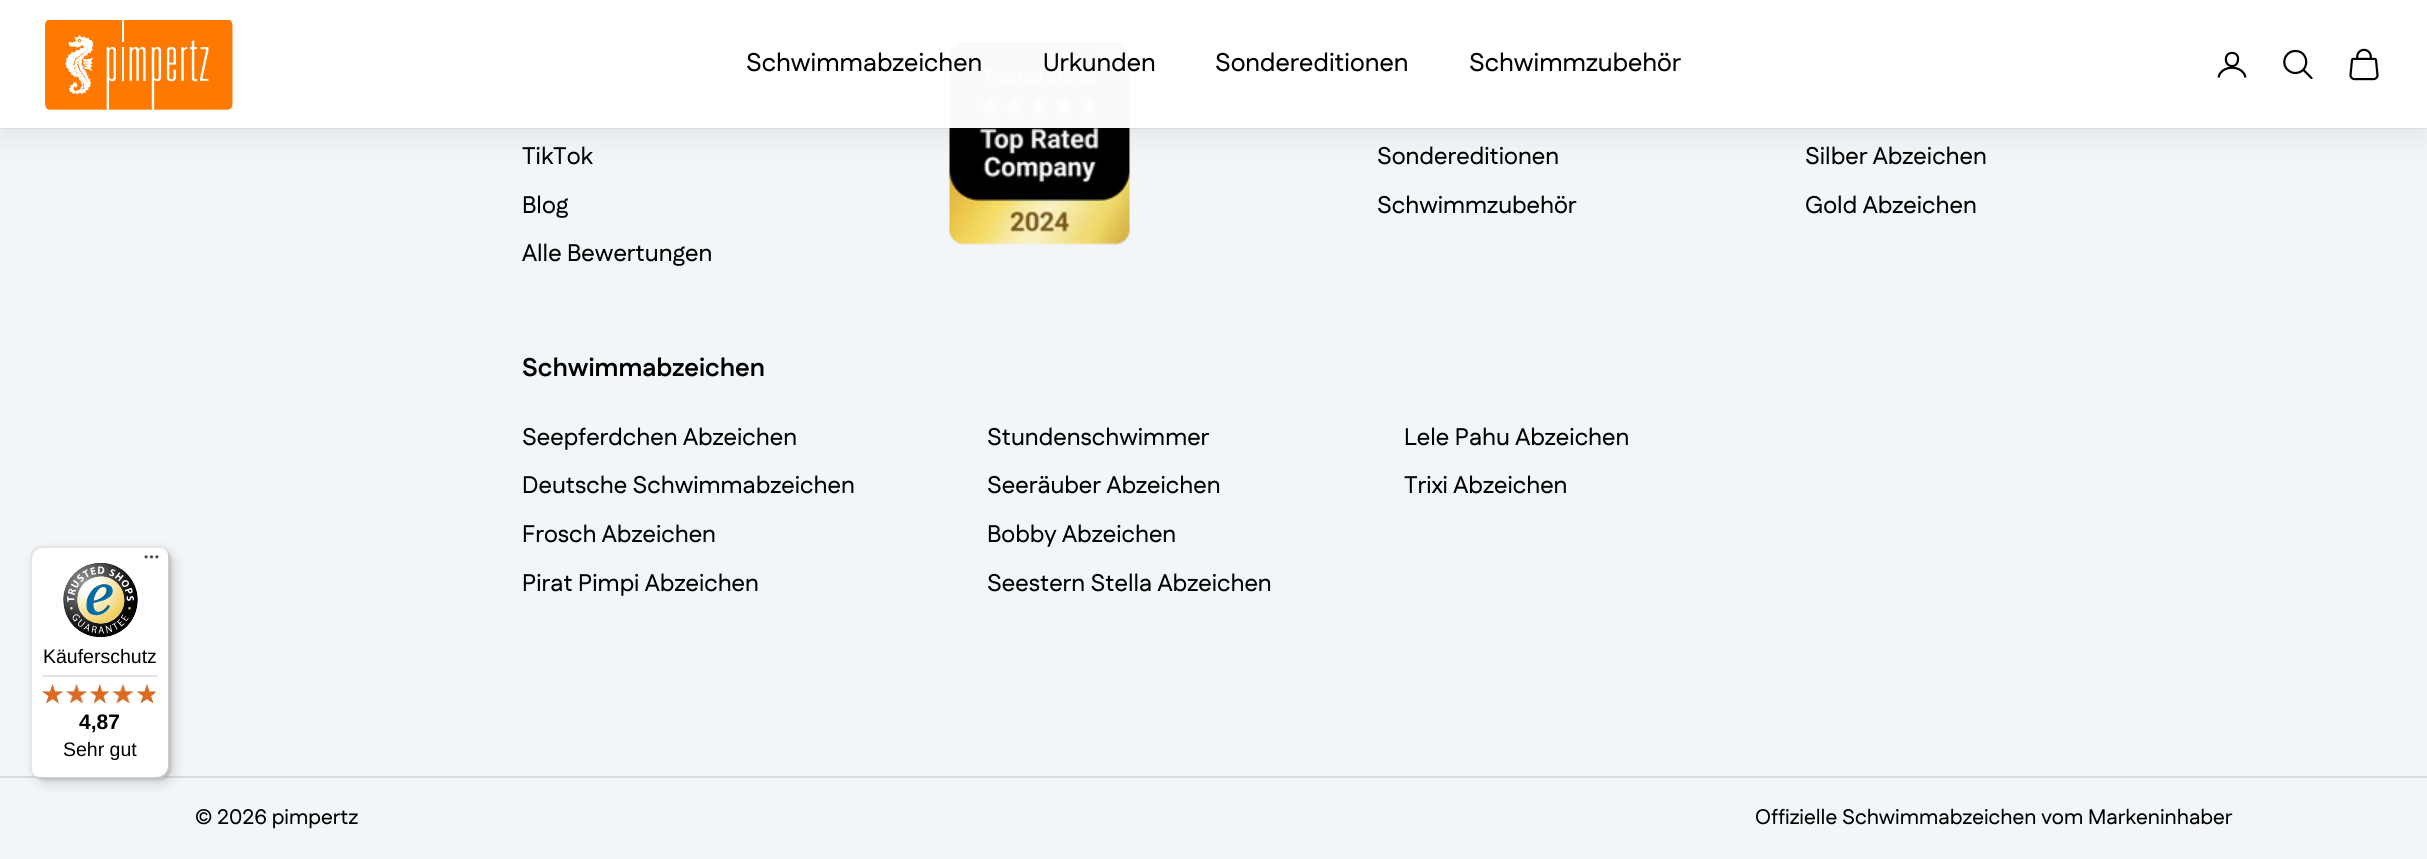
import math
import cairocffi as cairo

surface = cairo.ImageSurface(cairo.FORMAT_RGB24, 2427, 859)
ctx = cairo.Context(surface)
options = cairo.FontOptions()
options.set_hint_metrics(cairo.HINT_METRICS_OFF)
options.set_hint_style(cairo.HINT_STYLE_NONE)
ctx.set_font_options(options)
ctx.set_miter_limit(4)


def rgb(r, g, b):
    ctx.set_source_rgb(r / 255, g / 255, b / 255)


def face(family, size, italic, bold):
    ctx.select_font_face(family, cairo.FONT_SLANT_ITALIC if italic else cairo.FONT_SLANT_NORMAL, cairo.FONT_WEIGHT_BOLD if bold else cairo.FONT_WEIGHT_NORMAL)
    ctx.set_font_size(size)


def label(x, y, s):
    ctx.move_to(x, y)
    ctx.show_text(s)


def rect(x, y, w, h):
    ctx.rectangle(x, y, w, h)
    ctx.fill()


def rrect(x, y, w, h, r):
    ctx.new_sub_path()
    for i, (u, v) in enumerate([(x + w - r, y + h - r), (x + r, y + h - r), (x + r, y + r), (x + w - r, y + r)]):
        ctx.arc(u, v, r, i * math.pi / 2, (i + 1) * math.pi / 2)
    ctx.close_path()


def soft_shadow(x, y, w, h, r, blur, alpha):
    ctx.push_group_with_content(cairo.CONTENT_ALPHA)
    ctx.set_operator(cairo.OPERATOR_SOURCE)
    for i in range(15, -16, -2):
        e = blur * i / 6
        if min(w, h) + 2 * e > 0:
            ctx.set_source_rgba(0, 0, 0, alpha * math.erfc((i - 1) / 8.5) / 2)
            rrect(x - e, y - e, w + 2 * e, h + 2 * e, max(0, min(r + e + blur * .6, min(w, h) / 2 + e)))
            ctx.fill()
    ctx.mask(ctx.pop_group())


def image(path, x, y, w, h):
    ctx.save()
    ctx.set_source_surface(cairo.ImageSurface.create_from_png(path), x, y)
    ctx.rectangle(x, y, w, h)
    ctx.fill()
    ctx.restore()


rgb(242, 246, 248)
ctx.paint()
image('image14.png', 949, 42, 181, 203)
ctx.save()
ctx.set_fill_rule(cairo.FILL_RULE_EVEN_ODD)
ctx.new_path()
ctx.move_to(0, 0)
ctx.line_to(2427, 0)
ctx.line_to(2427, 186)
ctx.line_to(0, 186)
ctx.close_path()
ctx.move_to(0, 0)
ctx.line_to(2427, 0)
ctx.line_to(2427, 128)
ctx.line_to(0, 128)
ctx.close_path()
ctx.clip()
rgb(0, 0, 0)
soft_shadow(0, 12, 2427, 128, 0, 15, 0.06)
ctx.restore()
ctx.set_source_rgba(0, 0, 0, 0.06)
rect(0, 128, 2427, 1)
ctx.set_source_rgba(1, 1, 1, 0.98)
rect(0, 0, 2427, 128)
image('image0.png', 45, 20, 188, 90)
face('Fustat Medium', 25.5, 0, 0)
rgb(0, 0, 0)
label(746, 71, 'Schwimmabzeichen')
label(1043, 71, 'Urkunden')
label(1215, 71, 'Sondereditionen')
label(1469, 71, 'Schwimmzubehör')
ctx.new_path()
ctx.move_to(2238, 59.5)
ctx.curve_to(2237.5, 69.5, 2224.5, 67.5, 2226, 58)
ctx.curve_to(2227, 50.5, 2239, 51.5, 2238, 59.5)
ctx.close_path()
ctx.set_line_width(2.2)
ctx.set_line_cap(cairo.LINE_CAP_ROUND)
ctx.set_line_join(cairo.LINE_JOIN_ROUND)
ctx.stroke()
ctx.new_path()
ctx.move_to(2218.5, 77.5)
ctx.curve_to(2221, 64.5, 2243, 64.5, 2245.5, 77.5)
ctx.set_line_cap(cairo.LINE_CAP_BUTT)
ctx.set_line_join(cairo.LINE_JOIN_MITER)
ctx.stroke()
ctx.new_path()
ctx.move_to(2295.5, 51)
ctx.curve_to(2284, 51, 2280, 66, 2290, 71.5)
ctx.curve_to(2291.5, 72.5, 2293.5, 73, 2295.5, 73)
ctx.curve_to(2310, 72.5, 2309.5, 51, 2295.5, 51)
ctx.close_path()
ctx.stroke()
ctx.new_path()
ctx.move_to(2304, 70.5)
ctx.line_to(2311.5, 78)
ctx.set_line_cap(cairo.LINE_CAP_ROUND)
ctx.stroke()
image('image1.png', 2349, 48, 30, 33)
rgb(216, 219, 221)
rect(0, 776, 2427, 2)
rgb(0, 0, 0)
soft_shadow(35, 551, 139, 232, 12, 6, 0.15)
soft_shadow(32, 548, 139, 232, 12, 1.5, 0.15)
rgb(255, 255, 255)
rrect(30, 546, 140, 233, 12)
ctx.fill()
ctx.set_source_rgba(0, 0, 0, 0.1)
ctx.new_path()
ctx.move_to(44, 548)
ctx.line_to(159, 548)
ctx.curve_to(163, 548, 167, 550, 169, 553)
ctx.curve_to(167, 549, 163, 546, 158, 546)
ctx.line_to(42, 546)
ctx.curve_to(35, 546, 30, 551, 30, 558)
ctx.line_to(30, 767)
ctx.curve_to(30, 772, 33, 776, 37, 778)
ctx.curve_to(34, 776, 32, 772, 32, 768)
ctx.line_to(32, 560)
ctx.curve_to(32, 553, 37, 548, 44, 548)
ctx.close_path()
ctx.fill()
ctx.set_source_rgba(0, 0, 0, 0.2)
ctx.new_path()
ctx.move_to(32, 774)
ctx.curve_to(35, 777, 38, 779, 42, 779)
ctx.line_to(158, 779)
ctx.curve_to(165, 779, 170, 774, 170, 767)
ctx.line_to(170, 558)
ctx.curve_to(170, 554, 168, 551, 165, 548)
ctx.curve_to(167, 551, 168, 553, 168, 556)
ctx.line_to(168, 765)
ctx.curve_to(168, 772, 163, 777, 156, 777)
ctx.line_to(40, 777)
ctx.curve_to(37, 777, 35, 776, 32, 774)
ctx.close_path()
ctx.fill()
ctx.set_source_rgba(0.196, 0.196, 0.196, 0.2)
ctx.new_path()
ctx.move_to(33, 775)
ctx.curve_to(35, 777, 38, 779, 42, 779)
ctx.line_to(158, 779)
ctx.curve_to(165, 779, 170, 774, 170, 767)
ctx.line_to(170, 558)
ctx.curve_to(170, 554, 168, 551, 166, 549)
ctx.curve_to(168, 551, 169, 554, 169, 557)
ctx.line_to(169, 766)
ctx.curve_to(169, 772, 163, 778, 157, 778)
ctx.line_to(41, 778)
ctx.curve_to(38, 778, 35, 777, 33, 775)
ctx.close_path()
ctx.fill()
ctx.set_source_rgba(1, 1, 1, 0.3)
ctx.new_path()
ctx.move_to(32, 773)
ctx.curve_to(34, 777, 37, 779, 42, 779)
ctx.line_to(158, 779)
ctx.curve_to(165, 779, 170, 774, 170, 767)
ctx.line_to(170, 558)
ctx.curve_to(170, 553, 168, 550, 164, 548)
ctx.curve_to(167, 550, 169, 553, 169, 557)
ctx.line_to(169, 766)
ctx.curve_to(169, 772, 163, 778, 157, 778)
ctx.line_to(41, 778)
ctx.curve_to(37, 778, 34, 776, 32, 773)
ctx.close_path()
ctx.fill()
image('image2.png', 144, 555, 15, 4)
image('image3.png', 63, 563, 75, 75)
face('Liberation Sans', 19.5, 0, 0)
rgb(0, 0, 0)
label(43, 663, 'Käuferschutz')
rgb(229, 229, 229)
rect(42, 675, 116, 2)
image('image4.png', 42, 684, 21, 19)
image('image5.png', 66, 684, 21, 19)
image('image6.png', 90, 684, 19, 19)
image('image7.png', 112, 684, 22, 19)
image('image8.png', 137, 684, 20, 19)
image('image9.png', 42, 684, 21, 20)
image('image10.png', 66, 684, 21, 19)
image('image11.png', 90, 684, 20, 20)
image('image12.png', 112, 684, 22, 19)
image('image13.png', 137, 684, 18, 20)
face('Liberation Sans', 21, 0, 1)
rgb(0, 0, 0)
label(79, 729, '4,87')
face('Liberation Sans', 19.5, 0, 0)
label(63, 756, 'Sehr gut')
face('Fustat Medium', 24, 0, 0)
label(522, 164, 'TikTok')
label(522, 213, 'Blog')
label(522, 261, 'Alle Bewertungen')
label(1377, 164, 'Sondereditionen')
label(1377, 213, 'Schwimmzubehör')
label(1805, 164, 'Silber Abzeichen')
label(1805, 213, 'Gold Abzeichen')
face('Fustat', 25.5, 0, 1)
label(522, 376, 'Schwimmabzeichen')
face('Fustat Medium', 24, 0, 0)
label(522, 445, 'Seepferdchen Abzeichen')
label(987, 445, 'Stundenschwimmer')
label(1404, 445, 'Lele Pahu Abzeichen')
label(522, 493, 'Deutsche Schwimmabzeichen')
label(987, 493, 'Seeräuber Abzeichen')
label(1404, 493, 'Trixi Abzeichen')
label(522, 542, 'Frosch Abzeichen')
label(987, 542, 'Bobby Abzeichen')
label(522, 591, 'Pirat Pimpi Abzeichen')
label(987, 591, 'Seestern Stella Abzeichen')
face('Fustat Medium', 21, 0, 0)
label(195, 824, '© 2026 pimpertz')
label(1755, 824, 'Offizielle Schwimmabzeichen vom Markeninhaber')
surface.write_to_png('render.png')
